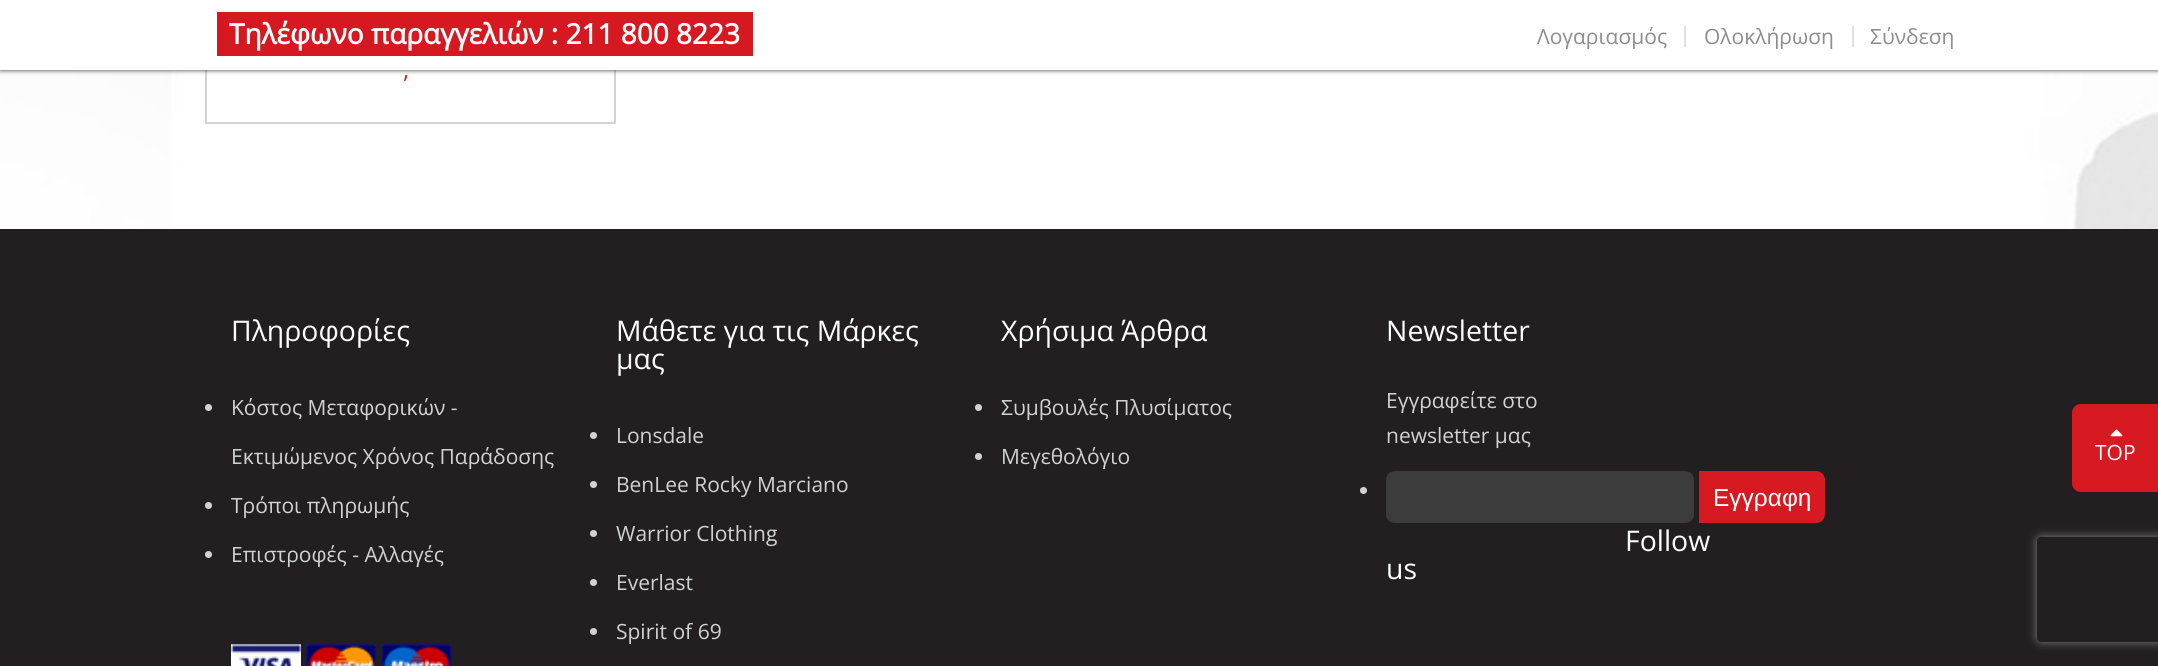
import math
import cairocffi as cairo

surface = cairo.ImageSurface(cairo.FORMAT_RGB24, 2158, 666)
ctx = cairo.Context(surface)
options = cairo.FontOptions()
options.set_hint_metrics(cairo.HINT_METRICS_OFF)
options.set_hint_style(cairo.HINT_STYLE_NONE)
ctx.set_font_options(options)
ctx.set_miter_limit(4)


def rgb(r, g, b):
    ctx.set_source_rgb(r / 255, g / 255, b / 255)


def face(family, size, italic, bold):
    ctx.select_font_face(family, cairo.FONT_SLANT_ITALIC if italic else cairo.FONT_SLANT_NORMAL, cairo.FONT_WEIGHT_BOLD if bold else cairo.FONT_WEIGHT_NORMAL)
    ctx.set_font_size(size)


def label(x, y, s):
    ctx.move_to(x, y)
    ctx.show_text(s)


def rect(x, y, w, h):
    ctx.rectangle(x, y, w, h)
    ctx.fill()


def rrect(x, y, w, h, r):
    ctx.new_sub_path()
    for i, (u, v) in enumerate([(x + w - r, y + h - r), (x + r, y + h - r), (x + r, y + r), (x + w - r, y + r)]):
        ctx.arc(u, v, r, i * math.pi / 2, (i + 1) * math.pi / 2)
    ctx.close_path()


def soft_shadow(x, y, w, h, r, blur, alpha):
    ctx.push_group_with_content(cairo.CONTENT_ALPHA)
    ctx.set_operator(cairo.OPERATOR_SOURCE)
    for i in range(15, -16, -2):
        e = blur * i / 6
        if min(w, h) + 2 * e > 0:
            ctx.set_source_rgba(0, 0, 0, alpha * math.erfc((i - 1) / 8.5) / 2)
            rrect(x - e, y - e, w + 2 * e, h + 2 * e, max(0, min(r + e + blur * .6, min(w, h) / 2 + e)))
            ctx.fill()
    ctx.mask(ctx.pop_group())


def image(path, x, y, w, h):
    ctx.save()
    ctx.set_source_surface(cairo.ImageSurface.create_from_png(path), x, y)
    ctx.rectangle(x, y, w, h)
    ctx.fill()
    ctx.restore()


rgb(255, 255, 255)
ctx.paint()
image('image0.png', 0, 70, 2158, 159)
ctx.rectangle(206, -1, 409, 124)
rgb(210, 210, 210)
ctx.stroke()
rgb(51, 51, 51)
soft_shadow(0, 0, 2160, 70, 0, 2.5, 1)
rgb(255, 255, 255)
rect(0, 0, 2158, 70)
rgb(214, 25, 33)
rect(217, 12, 536, 44)
face('Open Sans', 28, 0, 1)
rgb(255, 255, 255)
label(229, 44, 'Τηλέφωνο παραγγελιών : 211 800 8223')
rgb(225, 225, 225)
rect(1684, 26, 2, 21)
face('Open Sans', 21, 0, 0)
rgb(141, 141, 141)
label(1537, 44, 'Λογαριασμός')
rgb(225, 225, 225)
rect(1852, 26, 2, 21)
rgb(141, 141, 141)
label(1704, 44, 'Ολοκλήρωση')
label(1870, 44, 'Σύνδεση')
face('Open Sans', 24, 0, 0)
rgb(215, 26, 33)
label(403, 78, ',')
rgb(35, 31, 32)
rect(0, 229, 2158, 437)
face('Open Sans', 28.4, 0, 0)
rgb(255, 255, 255)
label(231, 341, 'Πληροφορίες')
rgb(210, 210, 210)
ctx.new_path()
ctx.arc(208.5, 407.5, 3.5, 0, 2 * math.pi)
ctx.fill()
face('Open Sans', 21, 0, 0)
label(231, 415, 'Κόστος Μεταφορικών -')
label(231, 464, 'Εκτιμώμενος Χρόνος Παράδοσης')
ctx.new_path()
ctx.arc(208.5, 505.5, 3.5, 0, 2 * math.pi)
ctx.fill()
label(231, 513, 'Τρόποι πληρωμής')
ctx.new_path()
ctx.arc(208.5, 554.5, 3.5, 0, 2 * math.pi)
ctx.fill()
label(231, 562, 'Επιστροφές - Αλλαγές')
image('image1.png', 231, 644, 70, 22)
image('image2.png', 306, 644, 71, 22)
image('image3.png', 381, 644, 71, 22)
face('Open Sans', 28.4, 0, 0)
rgb(255, 255, 255)
label(616, 341, 'Μάθετε για τις Μάρκες')
label(616, 369, 'μας')
rgb(210, 210, 210)
ctx.new_path()
ctx.arc(593.5, 435.5, 3.5, 0, 2 * math.pi)
ctx.fill()
face('Open Sans', 21, 0, 0)
label(616, 443, 'Lonsdale')
ctx.new_path()
ctx.arc(593.5, 484.5, 3.5, 0, 2 * math.pi)
ctx.fill()
label(616, 492, 'BenLee Rocky Marciano')
ctx.new_path()
ctx.arc(593.5, 533.5, 3.5, 0, 2 * math.pi)
ctx.fill()
label(616, 541, 'Warrior Clothing')
ctx.new_path()
ctx.arc(593.5, 582.5, 3.5, 0, 2 * math.pi)
ctx.fill()
label(616, 590, 'Everlast')
ctx.new_path()
ctx.arc(593.5, 631.5, 3.5, 0, 2 * math.pi)
ctx.fill()
label(616, 639, 'Spirit of 69')
face('Open Sans', 28.4, 0, 0)
rgb(255, 255, 255)
label(1001, 341, 'Χρήσιμα Άρθρα')
rgb(210, 210, 210)
ctx.new_path()
ctx.arc(978.5, 407.5, 3.5, 0, 2 * math.pi)
ctx.fill()
face('Open Sans', 21, 0, 0)
label(1001, 415, 'Συμβουλές Πλυσίματος')
ctx.new_path()
ctx.arc(978.5, 456.5, 3.5, 0, 2 * math.pi)
ctx.fill()
label(1001, 464, 'Μεγεθολόγιο')
face('Open Sans', 28.4, 0, 0)
rgb(255, 255, 255)
label(1386, 341, 'Newsletter')
face('Open Sans', 21, 0, 0)
rgb(210, 210, 210)
label(1386, 408, 'Εγγραφείτε στο')
label(1386, 443, 'newsletter μας')
rgb(60, 60, 60)
rrect(1387, 472, 306, 50, 8)
ctx.fill_preserve()
ctx.stroke()
rgb(210, 210, 210)
ctx.arc(1363.5, 490.5, 3.5, 0, 2 * math.pi)
ctx.fill()
ctx.save()
ctx.set_fill_rule(cairo.FILL_RULE_EVEN_ODD)
ctx.new_path()
ctx.move_to(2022, 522)
ctx.line_to(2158, 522)
ctx.line_to(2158, 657)
ctx.line_to(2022, 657)
ctx.close_path()
ctx.move_to(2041, 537)
ctx.line_to(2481, 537)
ctx.curve_to(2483, 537, 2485, 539, 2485, 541)
ctx.line_to(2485, 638)
ctx.curve_to(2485, 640, 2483, 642, 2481, 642)
ctx.line_to(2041, 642)
ctx.curve_to(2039, 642, 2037, 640, 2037, 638)
ctx.line_to(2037, 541)
ctx.curve_to(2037, 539, 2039, 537, 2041, 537)
ctx.close_path()
ctx.clip()
rgb(128, 128, 128)
soft_shadow(2037, 537, 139, 105, 4, 4.5, 1)
ctx.restore()
rgb(215, 26, 33)
ctx.new_path()
ctx.move_to(1700, 472)
ctx.line_to(1816, 472)
ctx.curve_to(1820.5, 472, 1824, 475.5, 1824, 480)
ctx.line_to(1824, 514)
ctx.curve_to(1824, 518.5, 1820.5, 522, 1816, 522)
ctx.line_to(1700, 522)
ctx.close_path()
ctx.fill_preserve()
ctx.stroke()
face('Liberation Sans', 24.5, 0, 0)
rgb(255, 255, 255)
label(1713, 506, 'Εγγραφη')
face('Open Sans', 28.4, 0, 0)
label(1625, 551, 'Follow')
label(1386, 579, 'us')
rgb(215, 26, 33)
ctx.new_path()
ctx.move_to(2081, 404)
ctx.line_to(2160, 404)
ctx.line_to(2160, 492)
ctx.line_to(2081, 492)
ctx.curve_to(2076, 492, 2072, 488, 2072, 483)
ctx.line_to(2072, 413)
ctx.curve_to(2072, 408, 2076, 404, 2081, 404)
ctx.close_path()
ctx.fill()
image('image4.png', 2110, 429, 13, 8)
face('Open Sans', 21, 0, 0)
rgb(255, 255, 255)
label(2095, 460, 'TOP')
surface.write_to_png('render.png')
